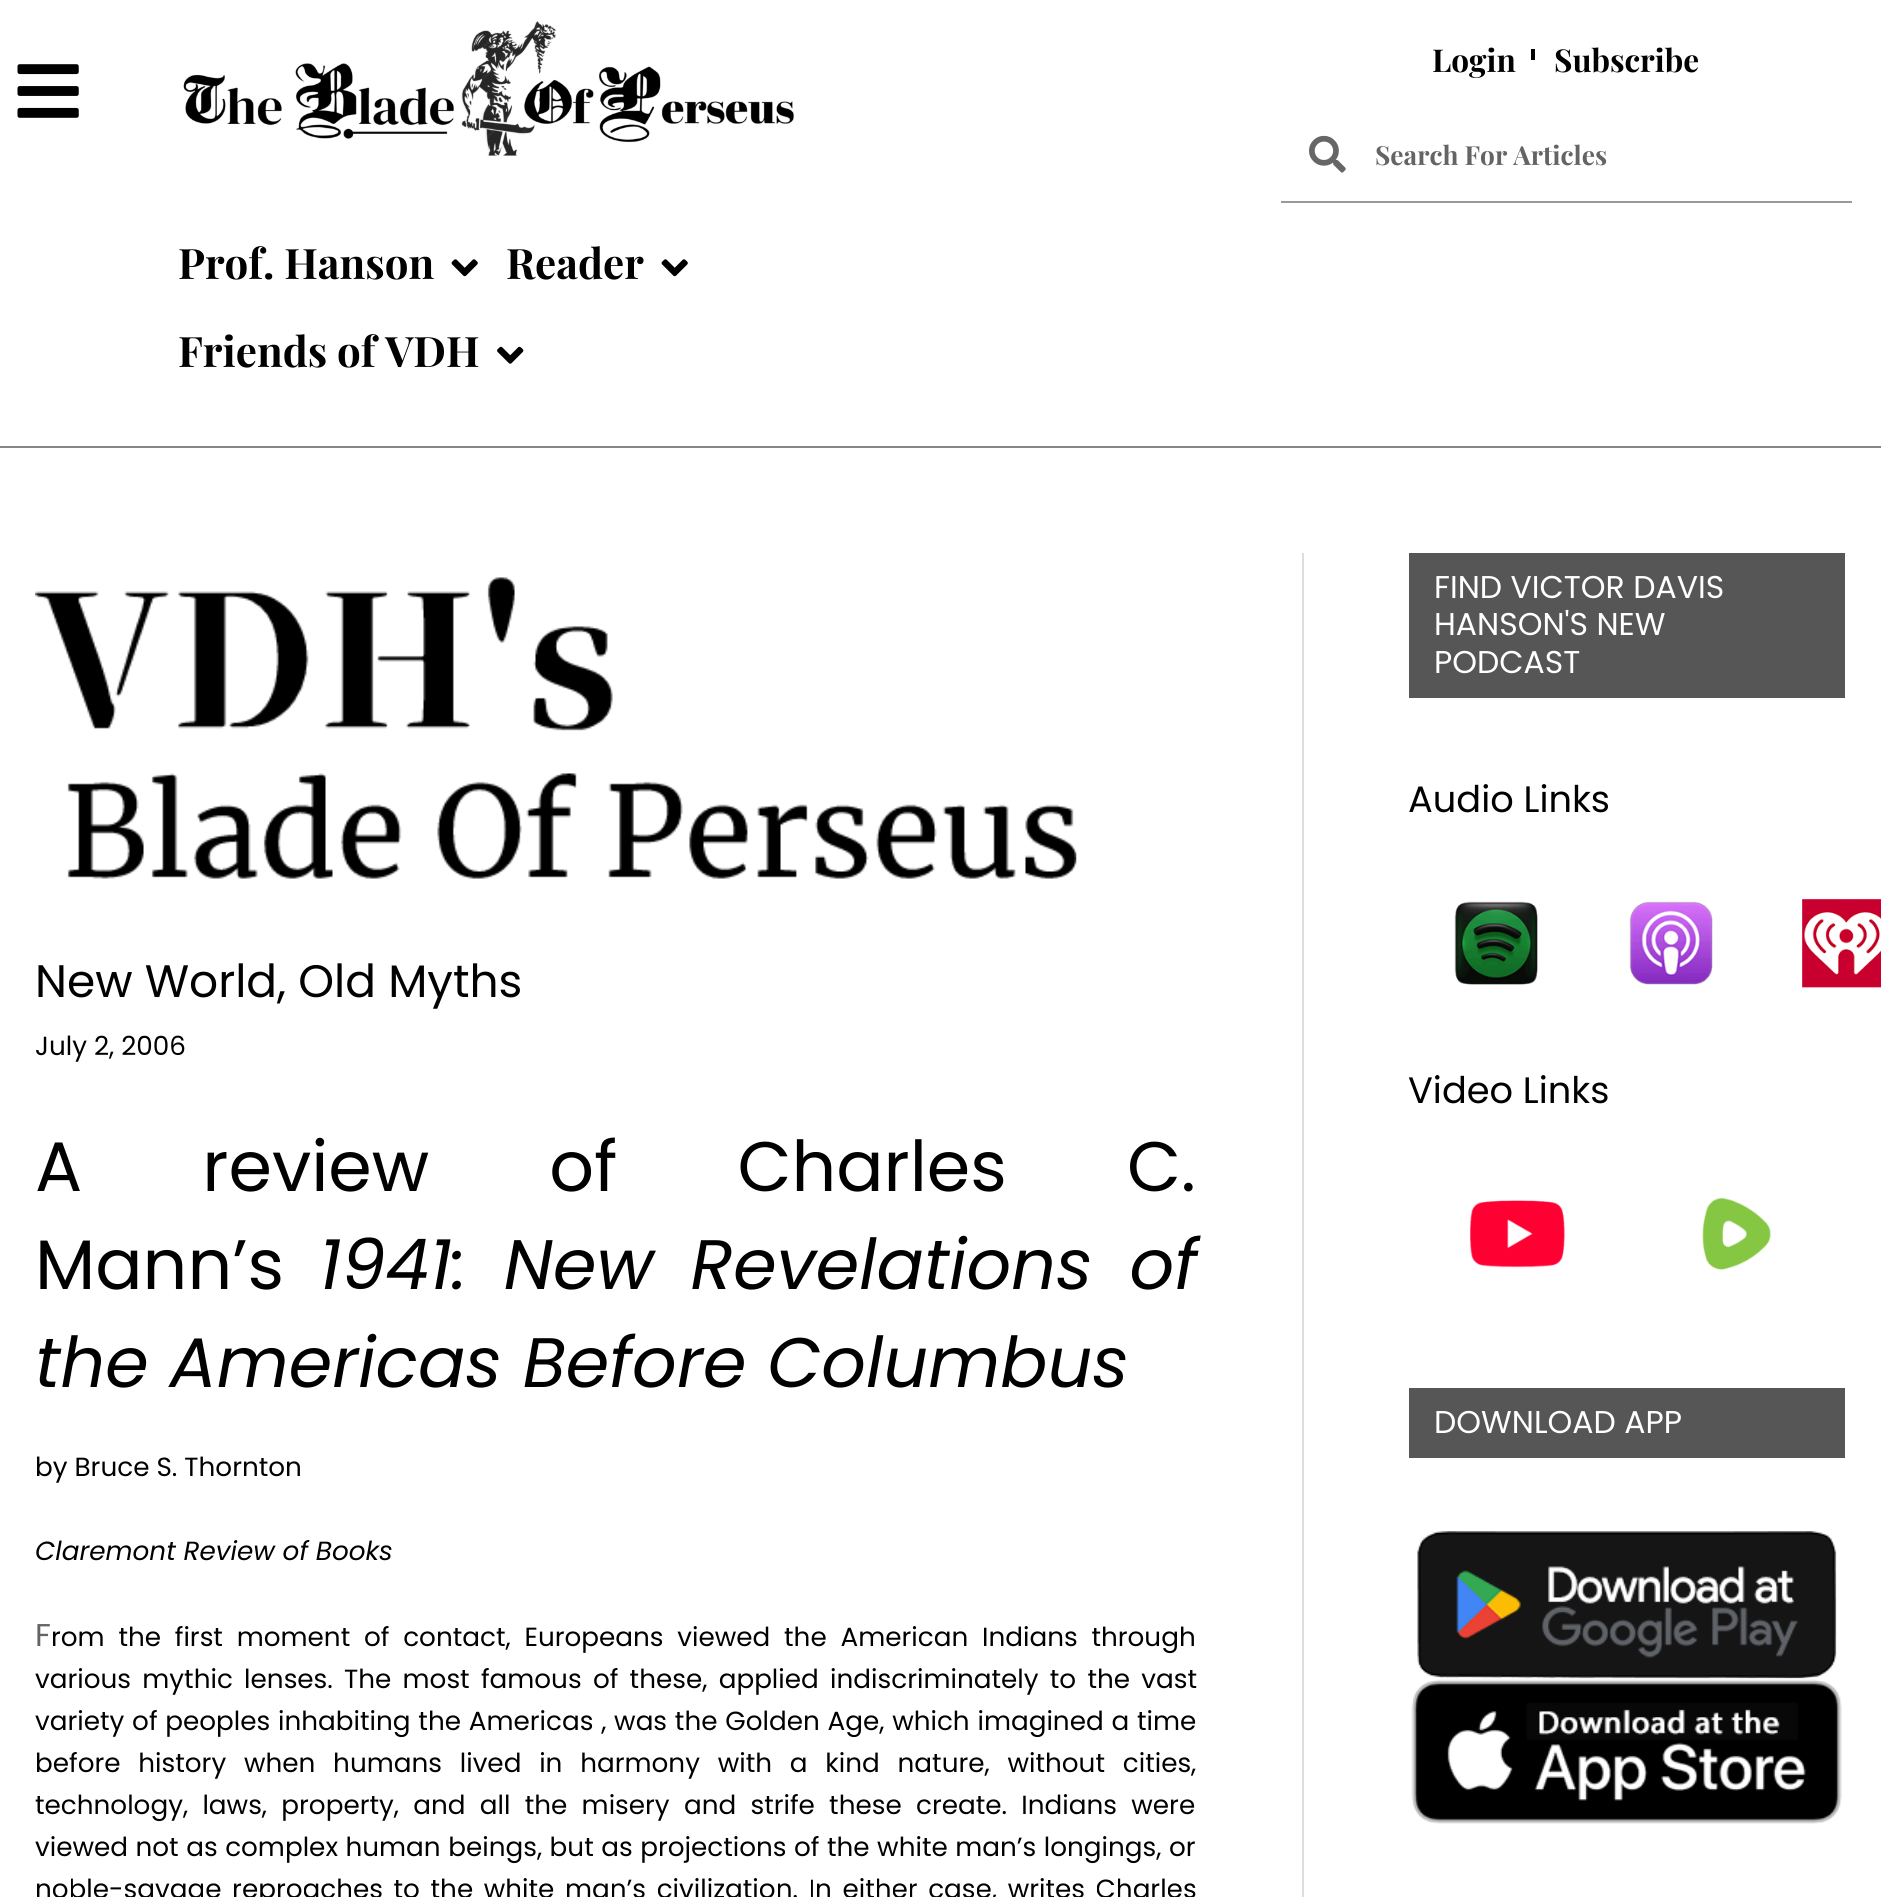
import math
import cairocffi as cairo

surface = cairo.ImageSurface(cairo.FORMAT_RGB24, 1881, 1897)
ctx = cairo.Context(surface)
options = cairo.FontOptions()
options.set_hint_metrics(cairo.HINT_METRICS_OFF)
options.set_hint_style(cairo.HINT_STYLE_NONE)
ctx.set_font_options(options)
ctx.set_miter_limit(4)


def rgb(r, g, b):
    ctx.set_source_rgb(r / 255, g / 255, b / 255)


def face(family, size, italic, bold):
    ctx.select_font_face(family, cairo.FONT_SLANT_ITALIC if italic else cairo.FONT_SLANT_NORMAL, cairo.FONT_WEIGHT_BOLD if bold else cairo.FONT_WEIGHT_NORMAL)
    ctx.set_font_size(size)


def label(x, y, s):
    ctx.move_to(x, y)
    ctx.show_text(s)


def tracked(x, y, s, letter, word):
    ctx.move_to(x, y)
    for ch in s:
        ctx.show_text(ch)
        ctx.rel_move_to(letter + word * (ch == ' '), 0)


def rect(x, y, w, h):
    ctx.rectangle(x, y, w, h)
    ctx.fill()


def image(path, x, y, w, h):
    ctx.save()
    ctx.set_source_surface(cairo.ImageSurface.create_from_png(path), x, y)
    ctx.rectangle(x, y, w, h)
    ctx.fill()
    ctx.restore()


rgb(255, 255, 255)
ctx.paint()
image('image0.png', 17, 64, 62, 54)
image('image1.png', 183, 21, 611, 135)
face('Playfair Display', 31.5, 0, 1)
rgb(0, 0, 0)
label(1432, 72, 'Login')
rect(1531, 49, 4, 11)
label(1554, 72, 'Subscribe')
rgb(156, 152, 152)
rect(1281, 201, 571, 2)
image('image2.png', 1309, 135, 37, 38)
face('Playfair Display', 26.25, 0, 1)
rgb(100, 100, 100)
label(1375, 165, 'Search For Articles')
rgb(134, 134, 134)
rect(0, 446, 1881, 2)
face('Playfair Display', 42, 0, 1)
rgb(0, 0, 0)
label(178, 279, 'Prof. Hanson')
image('image3.png', 451, 259, 27, 18)
label(506, 279, 'Reader')
image('image3.png', 661, 259, 27, 18)
label(178, 367, 'Friends of VDH')
image('image4.png', 497, 346, 27, 18)
rgb(221, 221, 221)
rect(1302, 553, 2, 1344)
image('image5.png', 35, 577, 1042, 302)
face('Poppins', 45.5, 0, 0)
rgb(0, 0, 0)
label(35, 997, 'New World, Old Myths')
face('Poppins', 26.25, 0, 0)
label(35, 1055, 'July 2, 2006')
face('Poppins', 70, 0, 0)
tracked(35, 1191, 'A review of Charles C.', 0, 101.5)
label(35, 1289, 'Mann’s')
face('Poppins', 70, 1, 0)
tracked(319, 1289, '1941: New Revelations of', 0, 16)
label(35, 1387, 'the Americas Before Columbus')
face('Poppins', 26.25, 0, 0)
label(35, 1476, 'by Bruce S. Thornton')
face('Poppins', 26.25, 1, 0)
label(35, 1560, 'Claremont Review of Books')
face('Poppins', 31.5, 0, 0)
rgb(100, 100, 100)
label(35, 1646, 'F')
face('Poppins', 26.25, 0, 0)
rgb(0, 0, 0)
tracked(51, 1646, 'rom the first moment of contact, Europeans viewed the American Indians through', 0, 6.75)
tracked(35, 1688, 'various mythic lenses.', 0, 4.25)
tracked(344, 1688, 'The most famous of these, applied indiscriminately to the vast', 0, 4.25)
tracked(35, 1730, 'variety of peoples inhabiting the Americas , was the Golden Age, which imagined a time', 0, 0.75)
tracked(35, 1772, 'before history when humans lived in harmony with a kind nature, without cities,', 0, 10.75)
tracked(35, 1814, 'technology, laws, property, and all the misery and strife these create. Indians were', 0, 7.25)
tracked(35, 1856, 'viewed not as complex human beings, but as projections of the white man’s longings, or', 0, 0.5)
tracked(35, 1898, 'noble-savage reproaches to the white man’s civilization. In either case, writes Charles', 0, 3.6)
rgb(86, 86, 86)
rect(1409, 553, 436, 145)
face('Poppins', 31.5, 0, 0)
rgb(255, 255, 255)
label(1434, 598, 'FIND VICTOR DAVIS')
label(1434, 635, 'HANSON\'S NEW')
label(1434, 673, 'PODCAST')
face('Poppins', 36.75, 0, 0)
rgb(0, 0, 0)
label(1408, 812, 'Audio Links')
image('image6.png', 1454, 901, 84, 84)
image('image7.png', 1629, 901, 84, 84)
image('image8.png', 1802, 899, 79, 89)
label(1408, 1103, 'Video Links')
image('image9.png', 1470, 1200, 95, 68)
image('image10.png', 1702, 1197, 69, 73)
rgb(86, 86, 86)
rect(1409, 1388, 436, 70)
face('Poppins', 31.5, 0, 0)
rgb(255, 255, 255)
label(1434, 1433, 'DOWNLOAD APP')
image('image11.png', 1417, 1531, 420, 148)
image('image12.png', 1411, 1678, 431, 146)
surface.write_to_png('render.png')
